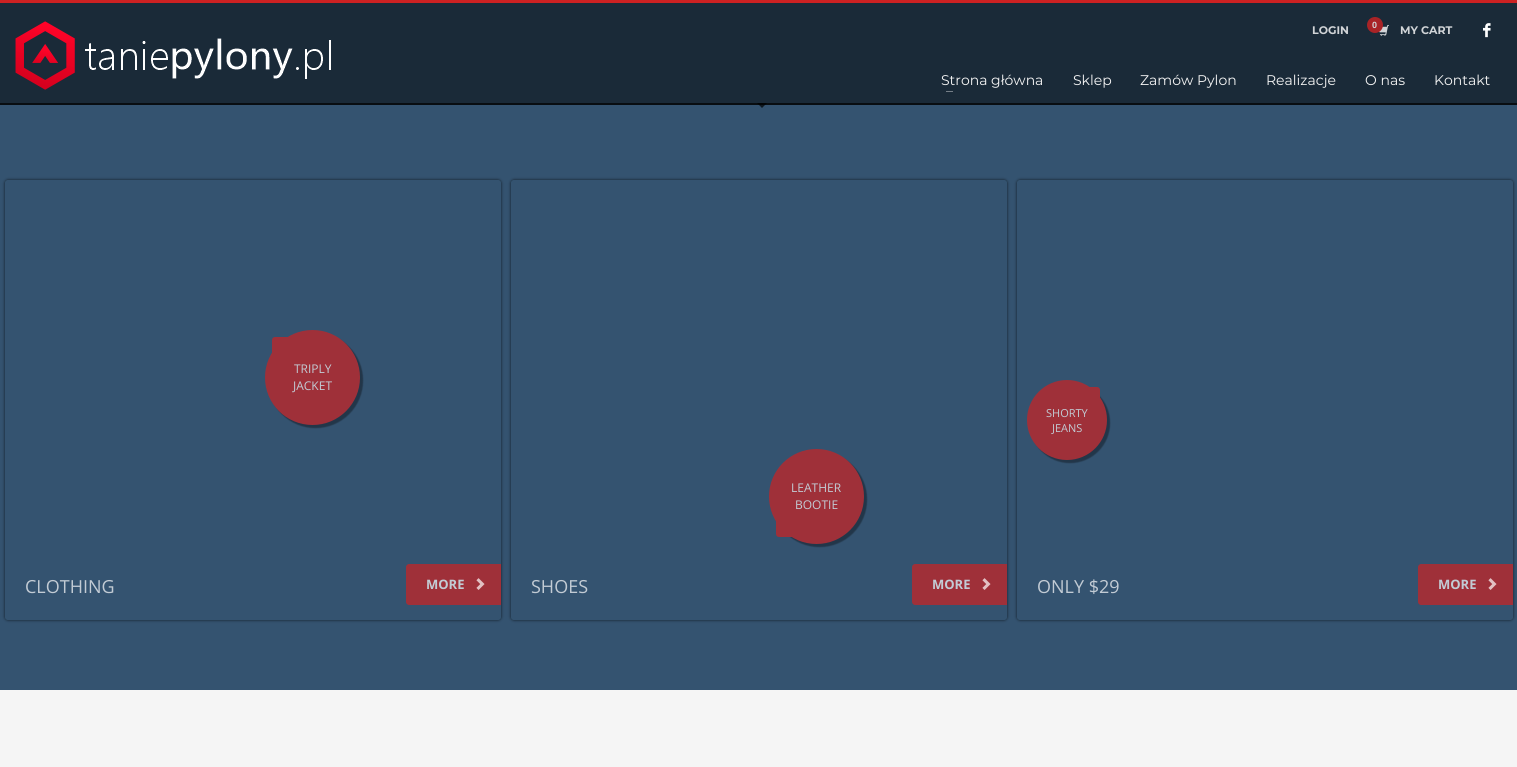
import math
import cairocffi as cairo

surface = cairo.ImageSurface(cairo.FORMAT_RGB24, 1517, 767)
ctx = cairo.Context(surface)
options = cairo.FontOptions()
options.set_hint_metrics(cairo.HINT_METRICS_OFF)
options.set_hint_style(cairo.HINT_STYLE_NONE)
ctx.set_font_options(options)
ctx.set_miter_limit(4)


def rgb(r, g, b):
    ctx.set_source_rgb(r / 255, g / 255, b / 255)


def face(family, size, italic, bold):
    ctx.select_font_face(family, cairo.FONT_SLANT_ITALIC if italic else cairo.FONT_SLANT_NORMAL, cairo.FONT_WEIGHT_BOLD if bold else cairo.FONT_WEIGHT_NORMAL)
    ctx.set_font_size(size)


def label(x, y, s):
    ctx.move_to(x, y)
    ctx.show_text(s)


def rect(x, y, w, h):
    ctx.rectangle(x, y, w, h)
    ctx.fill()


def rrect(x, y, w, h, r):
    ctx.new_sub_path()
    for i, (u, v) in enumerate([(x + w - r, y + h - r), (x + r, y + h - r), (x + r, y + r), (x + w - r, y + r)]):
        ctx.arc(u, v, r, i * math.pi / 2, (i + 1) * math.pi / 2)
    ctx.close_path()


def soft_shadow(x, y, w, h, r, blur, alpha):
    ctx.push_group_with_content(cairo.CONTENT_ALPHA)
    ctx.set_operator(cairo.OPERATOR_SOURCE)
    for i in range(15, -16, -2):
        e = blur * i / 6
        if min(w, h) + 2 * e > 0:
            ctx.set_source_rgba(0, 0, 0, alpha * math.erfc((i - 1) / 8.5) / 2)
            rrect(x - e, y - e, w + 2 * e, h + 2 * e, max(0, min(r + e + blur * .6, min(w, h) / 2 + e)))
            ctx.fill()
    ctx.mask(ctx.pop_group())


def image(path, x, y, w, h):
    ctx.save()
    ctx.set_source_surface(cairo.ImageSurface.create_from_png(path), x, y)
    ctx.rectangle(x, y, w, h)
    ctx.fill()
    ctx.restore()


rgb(245, 245, 245)
ctx.paint()
rgb(26, 42, 56)
rect(0, 3, 1517, 100)
rgb(205, 33, 34)
rect(0, 0, 1517, 3)
rgb(8, 13, 17)
rect(0, 103, 1517, 2)
image('image0.png', 15, 21, 316, 69)
face('Montserrat', 11, 0, 1)
rgb(209, 212, 215)
label(1312, 34, 'LOGIN')
image('image1.png', 1379, 25, 10, 11)
rgb(169, 35, 38)
ctx.arc(1375, 25, 8, 0, 2 * math.pi)
ctx.fill()
face('Liberation Sans', 9, 0, 1)
rgb(209, 212, 215)
label(1372, 28, '0')
face('Montserrat', 11, 0, 1)
label(1400, 34, 'MY CART')
image('image2.png', 1483, 23, 8, 15)
face('Montserrat', 14, 0, 0)
rgb(245, 245, 245)
label(941, 85, 'Strona główna')
rgb(118, 127, 136)
rect(946, 91, 7, 1)
rgb(245, 245, 245)
label(1073, 85, 'Sklep')
label(1140, 85, 'Zamów Pylon')
label(1266, 85, 'Realizacje')
label(1365, 85, 'O nas')
label(1434, 85, 'Kontakt')
rgb(52, 83, 112)
rect(0, 105, 1517, 585)
ctx.set_source_rgba(0, 0, 0, 0.7)
ctx.new_path()
ctx.move_to(757, 103)
ctx.line_to(767, 103)
ctx.line_to(762, 108)
ctx.close_path()
ctx.fill()
ctx.save()
ctx.set_fill_rule(cairo.FILL_RULE_EVEN_ODD)
ctx.new_path()
ctx.move_to(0, 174)
ctx.line_to(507, 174)
ctx.line_to(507, 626)
ctx.line_to(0, 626)
ctx.close_path()
ctx.move_to(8, 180)
ctx.line_to(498, 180)
ctx.curve_to(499.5, 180, 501, 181.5, 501, 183)
ctx.line_to(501, 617)
ctx.curve_to(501, 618.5, 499.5, 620, 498, 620)
ctx.line_to(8, 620)
ctx.curve_to(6.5, 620, 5, 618.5, 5, 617)
ctx.line_to(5, 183)
ctx.curve_to(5, 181.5, 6.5, 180, 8, 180)
ctx.close_path()
ctx.clip()
rgb(16, 25, 34)
soft_shadow(5, 180, 496, 440, 3, 1.5, 1)
ctx.restore()
rgb(16, 25, 34)
soft_shadow(268, 333, 95, 95, 47.5, 0.5, 0.5)
rgb(159, 48, 57)
ctx.arc(312.5, 377.5, 47.5, 0, 2 * math.pi)
ctx.fill()
rrect(272, 337, 30, 30, 3)
ctx.fill()
face('Open Sans', 12, 0, 0)
rgb(194, 203, 212)
label(294, 373, 'TRIPLY')
label(293, 390, 'JACKET')
face('Open Sans', 18, 0, 0)
label(25, 593, 'CLOTHING')
rgb(159, 48, 57)
ctx.new_path()
ctx.move_to(409, 564)
ctx.line_to(501, 564)
ctx.line_to(501, 605)
ctx.line_to(409, 605)
ctx.curve_to(407.5, 605, 406, 603.5, 406, 602)
ctx.line_to(406, 567)
ctx.curve_to(406, 565.5, 407.5, 564, 409, 564)
ctx.close_path()
ctx.fill()
face('Open Sans', 13, 0, 1)
rgb(194, 203, 212)
label(426, 589, 'MORE')
image('image3.png', 476, 578, 9, 12)
ctx.save()
ctx.set_fill_rule(cairo.FILL_RULE_EVEN_ODD)
ctx.new_path()
ctx.move_to(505, 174)
ctx.line_to(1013, 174)
ctx.line_to(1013, 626)
ctx.line_to(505, 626)
ctx.close_path()
ctx.move_to(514, 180)
ctx.line_to(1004, 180)
ctx.curve_to(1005.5, 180, 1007, 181.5, 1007, 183)
ctx.line_to(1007, 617)
ctx.curve_to(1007, 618.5, 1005.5, 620, 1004, 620)
ctx.line_to(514, 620)
ctx.curve_to(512.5, 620, 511, 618.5, 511, 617)
ctx.line_to(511, 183)
ctx.curve_to(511, 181.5, 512.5, 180, 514, 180)
ctx.close_path()
ctx.clip()
rgb(16, 25, 34)
soft_shadow(511, 180, 496, 440, 3, 1.5, 1)
ctx.restore()
rgb(16, 25, 34)
soft_shadow(772, 452, 95, 95, 47.5, 0.5, 0.5)
rgb(159, 48, 57)
ctx.arc(816.5, 496.5, 47.5, 0, 2 * math.pi)
ctx.fill()
face('Open Sans', 12, 0, 0)
rgb(194, 203, 212)
label(791, 492, 'LEATHER')
rgb(159, 48, 57)
rrect(776, 507, 30, 30, 3)
ctx.fill()
rgb(194, 203, 212)
label(795, 509, 'BOOTIE')
face('Open Sans', 18, 0, 0)
label(531, 593, 'SHOES')
rgb(159, 48, 57)
ctx.new_path()
ctx.move_to(915, 564)
ctx.line_to(1007, 564)
ctx.line_to(1007, 605)
ctx.line_to(915, 605)
ctx.curve_to(913.5, 605, 912, 603.5, 912, 602)
ctx.line_to(912, 567)
ctx.curve_to(912, 565.5, 913.5, 564, 915, 564)
ctx.close_path()
ctx.fill()
face('Open Sans', 13, 0, 1)
rgb(194, 203, 212)
label(932, 589, 'MORE')
image('image3.png', 982, 578, 9, 12)
ctx.save()
ctx.set_fill_rule(cairo.FILL_RULE_EVEN_ODD)
ctx.new_path()
ctx.move_to(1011, 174)
ctx.line_to(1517, 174)
ctx.line_to(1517, 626)
ctx.line_to(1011, 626)
ctx.close_path()
ctx.move_to(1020, 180)
ctx.line_to(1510, 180)
ctx.curve_to(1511.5, 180, 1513, 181.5, 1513, 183)
ctx.line_to(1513, 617)
ctx.curve_to(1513, 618.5, 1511.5, 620, 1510, 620)
ctx.line_to(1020, 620)
ctx.curve_to(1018.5, 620, 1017, 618.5, 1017, 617)
ctx.line_to(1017, 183)
ctx.curve_to(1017, 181.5, 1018.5, 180, 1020, 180)
ctx.close_path()
ctx.clip()
rgb(16, 25, 34)
soft_shadow(1017, 180, 496, 440, 3, 1.5, 1)
ctx.restore()
rgb(16, 25, 34)
soft_shadow(1030, 383, 80, 80, 40, 0.5, 0.5)
rgb(159, 48, 57)
ctx.arc(1067, 420, 40, 0, 2 * math.pi)
ctx.fill()
rrect(1070, 387, 30, 30, 3)
ctx.fill()
face('Open Sans', 11, 0, 0)
rgb(194, 203, 212)
label(1046, 417, 'SHORTY')
label(1052, 432, 'JEANS')
face('Open Sans', 18, 0, 0)
label(1037, 593, 'ONLY $29')
rgb(159, 48, 57)
ctx.new_path()
ctx.move_to(1421, 564)
ctx.line_to(1513, 564)
ctx.line_to(1513, 605)
ctx.line_to(1421, 605)
ctx.curve_to(1419.5, 605, 1418, 603.5, 1418, 602)
ctx.line_to(1418, 567)
ctx.curve_to(1418, 565.5, 1419.5, 564, 1421, 564)
ctx.close_path()
ctx.fill()
face('Open Sans', 13, 0, 1)
rgb(194, 203, 212)
label(1438, 589, 'MORE')
image('image3.png', 1488, 578, 9, 12)
surface.write_to_png('render.png')
